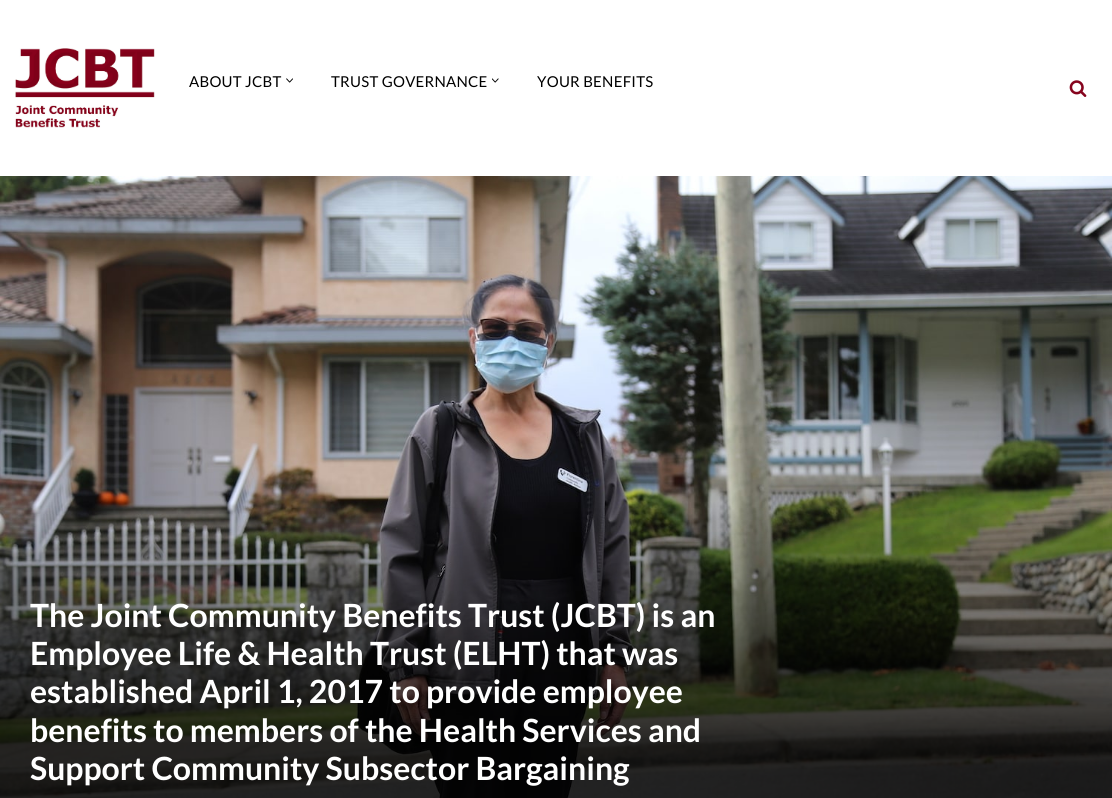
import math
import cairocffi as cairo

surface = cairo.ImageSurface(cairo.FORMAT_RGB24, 1112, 798)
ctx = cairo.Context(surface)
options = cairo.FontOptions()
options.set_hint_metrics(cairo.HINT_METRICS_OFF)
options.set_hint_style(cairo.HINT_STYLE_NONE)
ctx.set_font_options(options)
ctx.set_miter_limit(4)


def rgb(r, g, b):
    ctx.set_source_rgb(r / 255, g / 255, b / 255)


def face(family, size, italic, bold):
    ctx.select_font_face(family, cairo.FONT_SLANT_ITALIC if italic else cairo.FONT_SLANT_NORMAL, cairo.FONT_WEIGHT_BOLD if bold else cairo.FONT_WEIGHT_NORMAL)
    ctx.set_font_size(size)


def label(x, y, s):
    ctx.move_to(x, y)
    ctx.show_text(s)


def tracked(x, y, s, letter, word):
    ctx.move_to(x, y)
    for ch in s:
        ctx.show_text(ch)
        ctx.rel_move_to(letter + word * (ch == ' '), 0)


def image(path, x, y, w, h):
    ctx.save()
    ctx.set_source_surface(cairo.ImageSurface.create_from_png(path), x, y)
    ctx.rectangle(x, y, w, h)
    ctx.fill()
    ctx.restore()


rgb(255, 255, 255)
ctx.paint()
image('image0.png', 15, 48, 140, 80)
face('Lato', 15, 0, 0)
rgb(0, 0, 0)
tracked(189, 87, 'ABOUT JCBT', 0.25, 0)
image('image1.png', 286, 78, 7, 5)
tracked(331, 87, 'TRUST GOVERNANCE', 0.25, 0)
image('image2.png', 492, 78, 7, 5)
tracked(537, 87, 'YOUR BENEFITS', 0.25, 0)
image('image3.png', 1069, 80, 18, 17)
image('image4.png', 0, 176, 1112, 622)
face('Lato', 32, 0, 1)
rgb(255, 255, 255)
label(30, 627, 'The Joint Community Benefits Trust (JCBT) is an')
label(30, 665, 'Employee Life & Health Trust (ELHT) that was')
label(30, 703, 'established April 1, 2017 to provide employee')
label(30, 742, 'benefits to members of the Health Services and')
label(30, 780, 'Support Community Subsector Bargaining')
surface.write_to_png('render.png')
